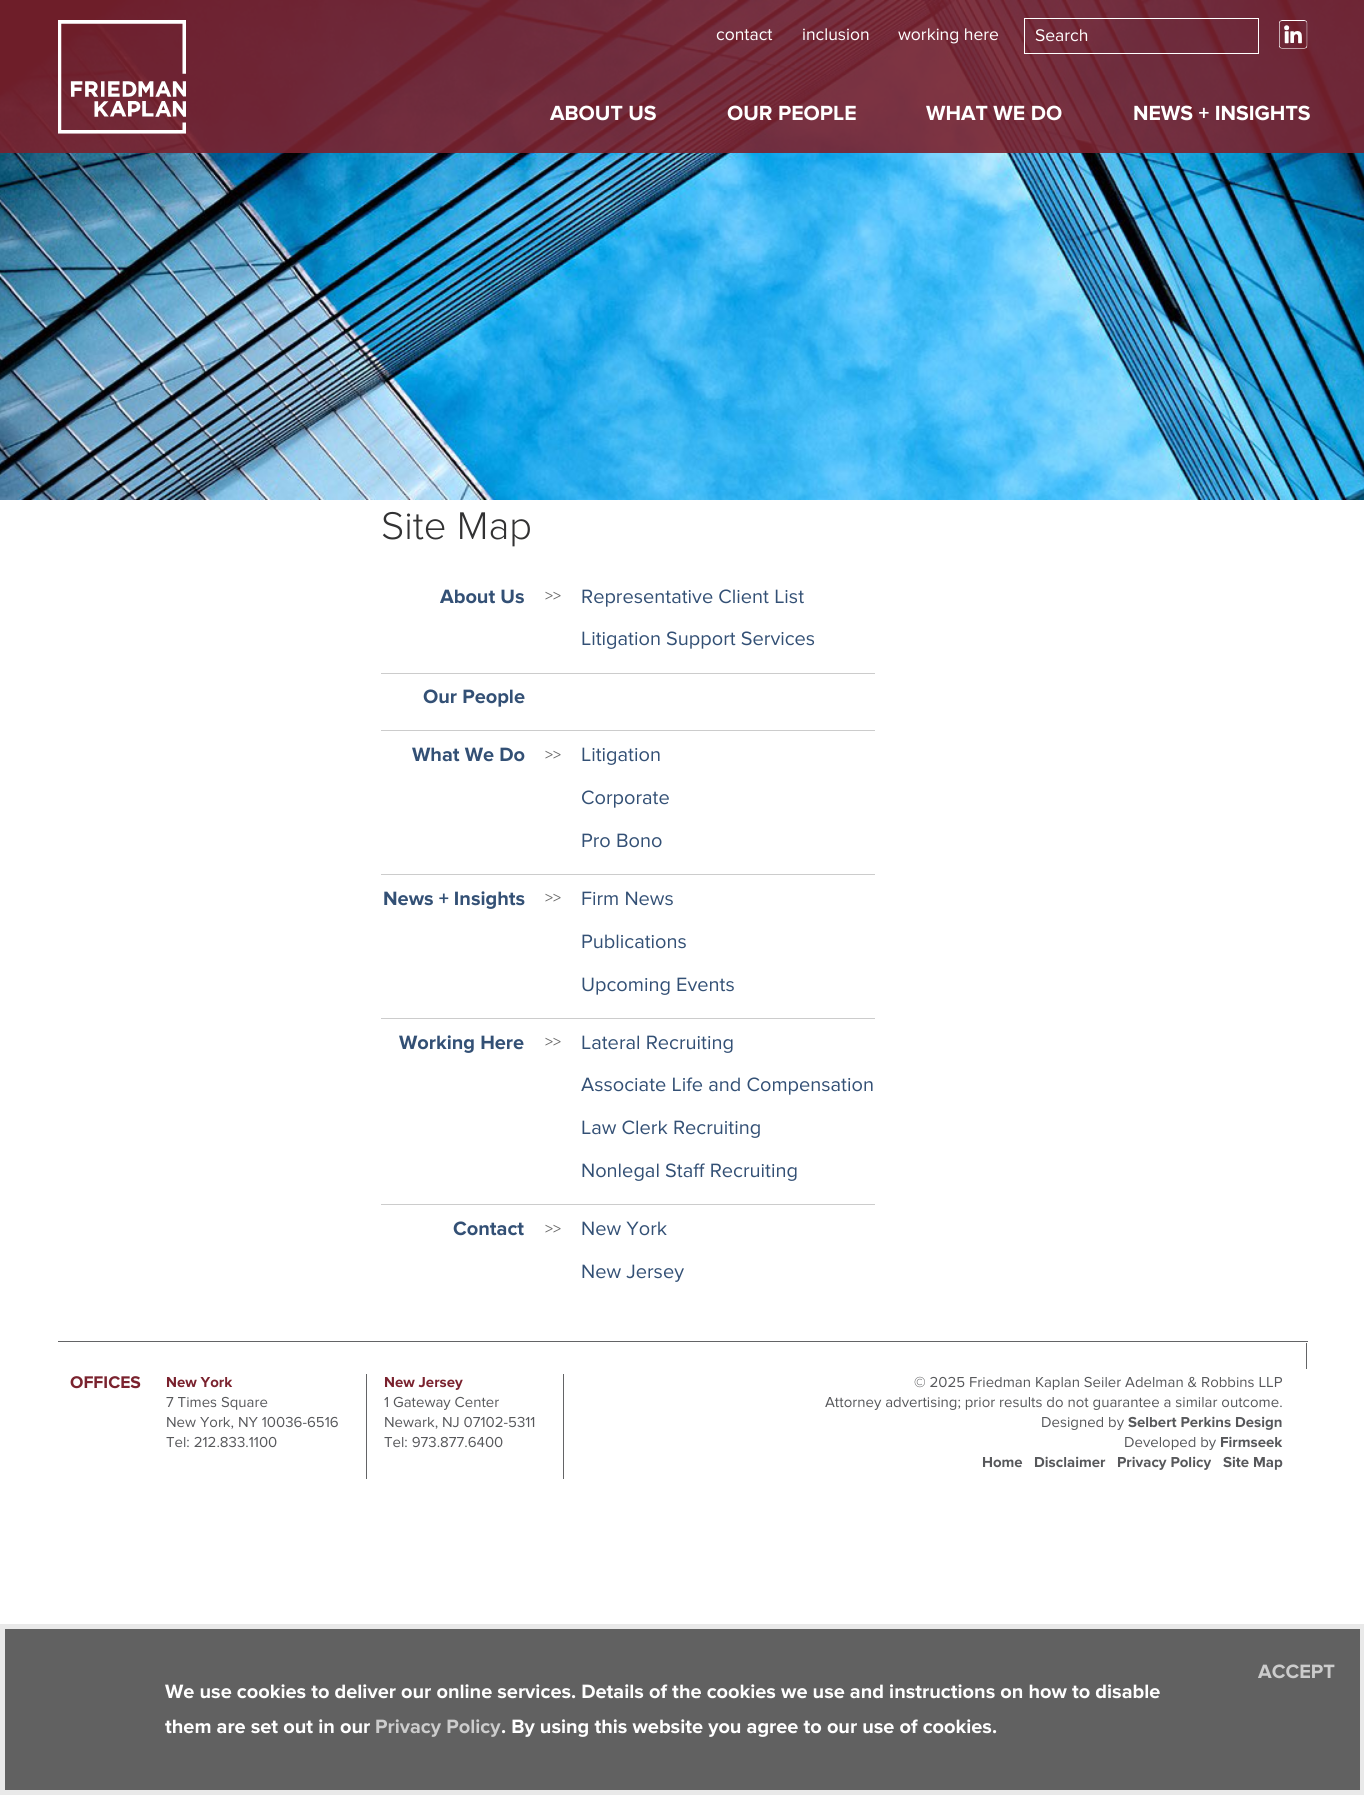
import math
import cairocffi as cairo

surface = cairo.ImageSurface(cairo.FORMAT_RGB24, 1364, 1795)
ctx = cairo.Context(surface)
options = cairo.FontOptions()
options.set_hint_metrics(cairo.HINT_METRICS_OFF)
options.set_hint_style(cairo.HINT_STYLE_NONE)
ctx.set_font_options(options)
ctx.set_miter_limit(4)


def rgb(r, g, b):
    ctx.set_source_rgb(r / 255, g / 255, b / 255)


def face(family, size, italic, bold):
    ctx.select_font_face(family, cairo.FONT_SLANT_ITALIC if italic else cairo.FONT_SLANT_NORMAL, cairo.FONT_WEIGHT_BOLD if bold else cairo.FONT_WEIGHT_NORMAL)
    ctx.set_font_size(size)


def label(x, y, s):
    ctx.move_to(x, y)
    ctx.show_text(s)


def rect(x, y, w, h):
    ctx.rectangle(x, y, w, h)
    ctx.fill()


def image(path, x, y, w, h):
    ctx.save()
    ctx.set_source_surface(cairo.ImageSurface.create_from_png(path), x, y)
    ctx.rectangle(x, y, w, h)
    ctx.fill()
    ctx.restore()


rgb(255, 255, 255)
ctx.paint()
image('image0.png', 0, 0, 1364, 500)
ctx.set_source_rgba(0.478, 0.133, 0.18, 0.9)
rect(0, 0, 1364, 153)
image('image1.png', 58, 20, 128, 114)
face('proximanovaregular', 17.5, 0, 0)
rgb(255, 255, 255)
label(716, 40, 'contact')
label(802, 40, 'inclusion')
label(898, 40, 'working here')
ctx.rectangle(1024.5, 18.5, 234, 35)
ctx.set_line_width(1)
ctx.stroke()
label(1035, 41, 'Search')
image('image2.png', 1279, 20, 29, 29)
face('proximanovaregular', 21.25, 0, 1)
label(550, 120, 'ABOUT US')
label(727, 120, 'OUR PEOPLE')
label(926, 120, 'WHAT WE DO')
label(1133, 120, 'NEWS + INSIGHTS')
face('Proxima Nova Light', 40, 0, 0)
rgb(50, 50, 51)
label(381, 539, 'Site Map')
face('proximanovaregular', 20, 0, 1)
rgb(51, 80, 117)
label(440, 603, 'About Us')
face('proximanovaregular', 16, 0, 0)
rgb(102, 102, 102)
label(545, 601, '>>')
face('proximanovaregular', 20, 0, 0)
rgb(51, 80, 117)
label(581, 603, 'Representative Client List')
label(581, 645, 'Litigation Support Services')
rgb(204, 204, 204)
rect(381, 673, 494, 1)
face('proximanovaregular', 20, 0, 1)
rgb(51, 80, 117)
label(423, 703, 'Our People')
rgb(204, 204, 204)
rect(381, 730, 494, 1)
rgb(51, 80, 117)
label(412, 761, 'What We Do')
face('proximanovaregular', 16, 0, 0)
rgb(102, 102, 102)
label(545, 760, '>>')
face('proximanovaregular', 20, 0, 0)
rgb(51, 80, 117)
label(581, 761, 'Litigation')
label(581, 804, 'Corporate')
label(581, 847, 'Pro Bono')
rgb(204, 204, 204)
rect(381, 874, 494, 1)
face('proximanovaregular', 20, 0, 1)
rgb(51, 80, 117)
label(383, 905, 'News + Insights')
face('proximanovaregular', 16, 0, 0)
rgb(102, 102, 102)
label(545, 903, '>>')
face('proximanovaregular', 20, 0, 0)
rgb(51, 80, 117)
label(581, 905, 'Firm News')
label(581, 948, 'Publications')
label(581, 991, 'Upcoming Events')
rgb(204, 204, 204)
rect(381, 1018, 494, 1)
face('proximanovaregular', 20, 0, 1)
rgb(51, 80, 117)
label(399, 1049, 'Working Here')
face('proximanovaregular', 16, 0, 0)
rgb(102, 102, 102)
label(545, 1047, '>>')
face('proximanovaregular', 20, 0, 0)
rgb(51, 80, 117)
label(581, 1049, 'Lateral Recruiting')
label(581, 1091, 'Associate Life and Compensation')
label(581, 1134, 'Law Clerk Recruiting')
label(581, 1177, 'Nonlegal Staff Recruiting')
rgb(204, 204, 204)
rect(381, 1204, 494, 1)
face('proximanovaregular', 20, 0, 1)
rgb(51, 80, 117)
label(453, 1235, 'Contact')
face('proximanovaregular', 16, 0, 0)
rgb(102, 102, 102)
label(545, 1234, '>>')
face('proximanovaregular', 20, 0, 0)
rgb(51, 80, 117)
label(581, 1235, 'New York')
label(581, 1278, 'New Jersey')
rgb(99, 100, 102)
rect(58, 1341, 1250, 1)
rect(1306, 1343, 1, 26)
face('proximanovaregular', 17.5, 0, 1)
rgb(122, 34, 46)
label(70, 1388, 'OFFICES')
rgb(99, 100, 102)
rect(366, 1374, 1, 105)
face('proximanovaregular', 15, 0, 1)
rgb(122, 34, 46)
label(166, 1387, 'New York')
face('proximanovaregular', 15, 0, 0)
rgb(87, 88, 91)
label(166, 1407, '7 Times Square')
label(166, 1427, 'New York, NY 10036-6516')
label(166, 1447, 'Tel: 212.833.1100')
rgb(99, 100, 102)
rect(563, 1374, 1, 105)
face('proximanovaregular', 15, 0, 1)
rgb(122, 34, 46)
label(384, 1387, 'New Jersey')
face('proximanovaregular', 15, 0, 0)
rgb(87, 88, 91)
label(384, 1407, '1 Gateway Center')
label(384, 1427, 'Newark, NJ 07102-5311')
label(384, 1447, 'Tel: 973.877.6400')
label(914, 1387, '© 2025 Friedman Kaplan Seiler Adelman & Robbins LLP')
label(825, 1407, 'Attorney advertising; prior results do not guarantee a similar outcome.')
label(1041, 1427, 'Designed by')
face('proximanovaregular', 15, 0, 1)
label(1128, 1427, 'Selbert Perkins Design')
face('proximanovaregular', 15, 0, 0)
label(1124, 1447, 'Developed by')
face('proximanovaregular', 15, 0, 1)
label(1220, 1447, 'Firmseek')
label(982, 1467, 'Home')
label(1034, 1467, 'Disclaimer')
label(1117, 1467, 'Privacy Policy')
label(1223, 1467, 'Site Map')
rgb(97, 97, 97)
ctx.rectangle(2.5, 1626.5, 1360, 166)
ctx.fill_preserve()
rgb(233, 233, 233)
ctx.set_line_width(5)
ctx.stroke()
face('proximanovaregular', 20, 0, 1)
rgb(204, 204, 204)
label(1258, 1678, 'ACCEPT')
rgb(255, 255, 255)
label(165, 1698, 'We use cookies to deliver our online services. Details of the cookies we use and instructions on how to disable')
label(165, 1733, 'them are set out in our')
rgb(204, 204, 204)
label(375, 1733, 'Privacy Policy')
rgb(255, 255, 255)
label(501, 1733, '. By using this website you agree to our use of cookies.')
surface.write_to_png('render.png')
